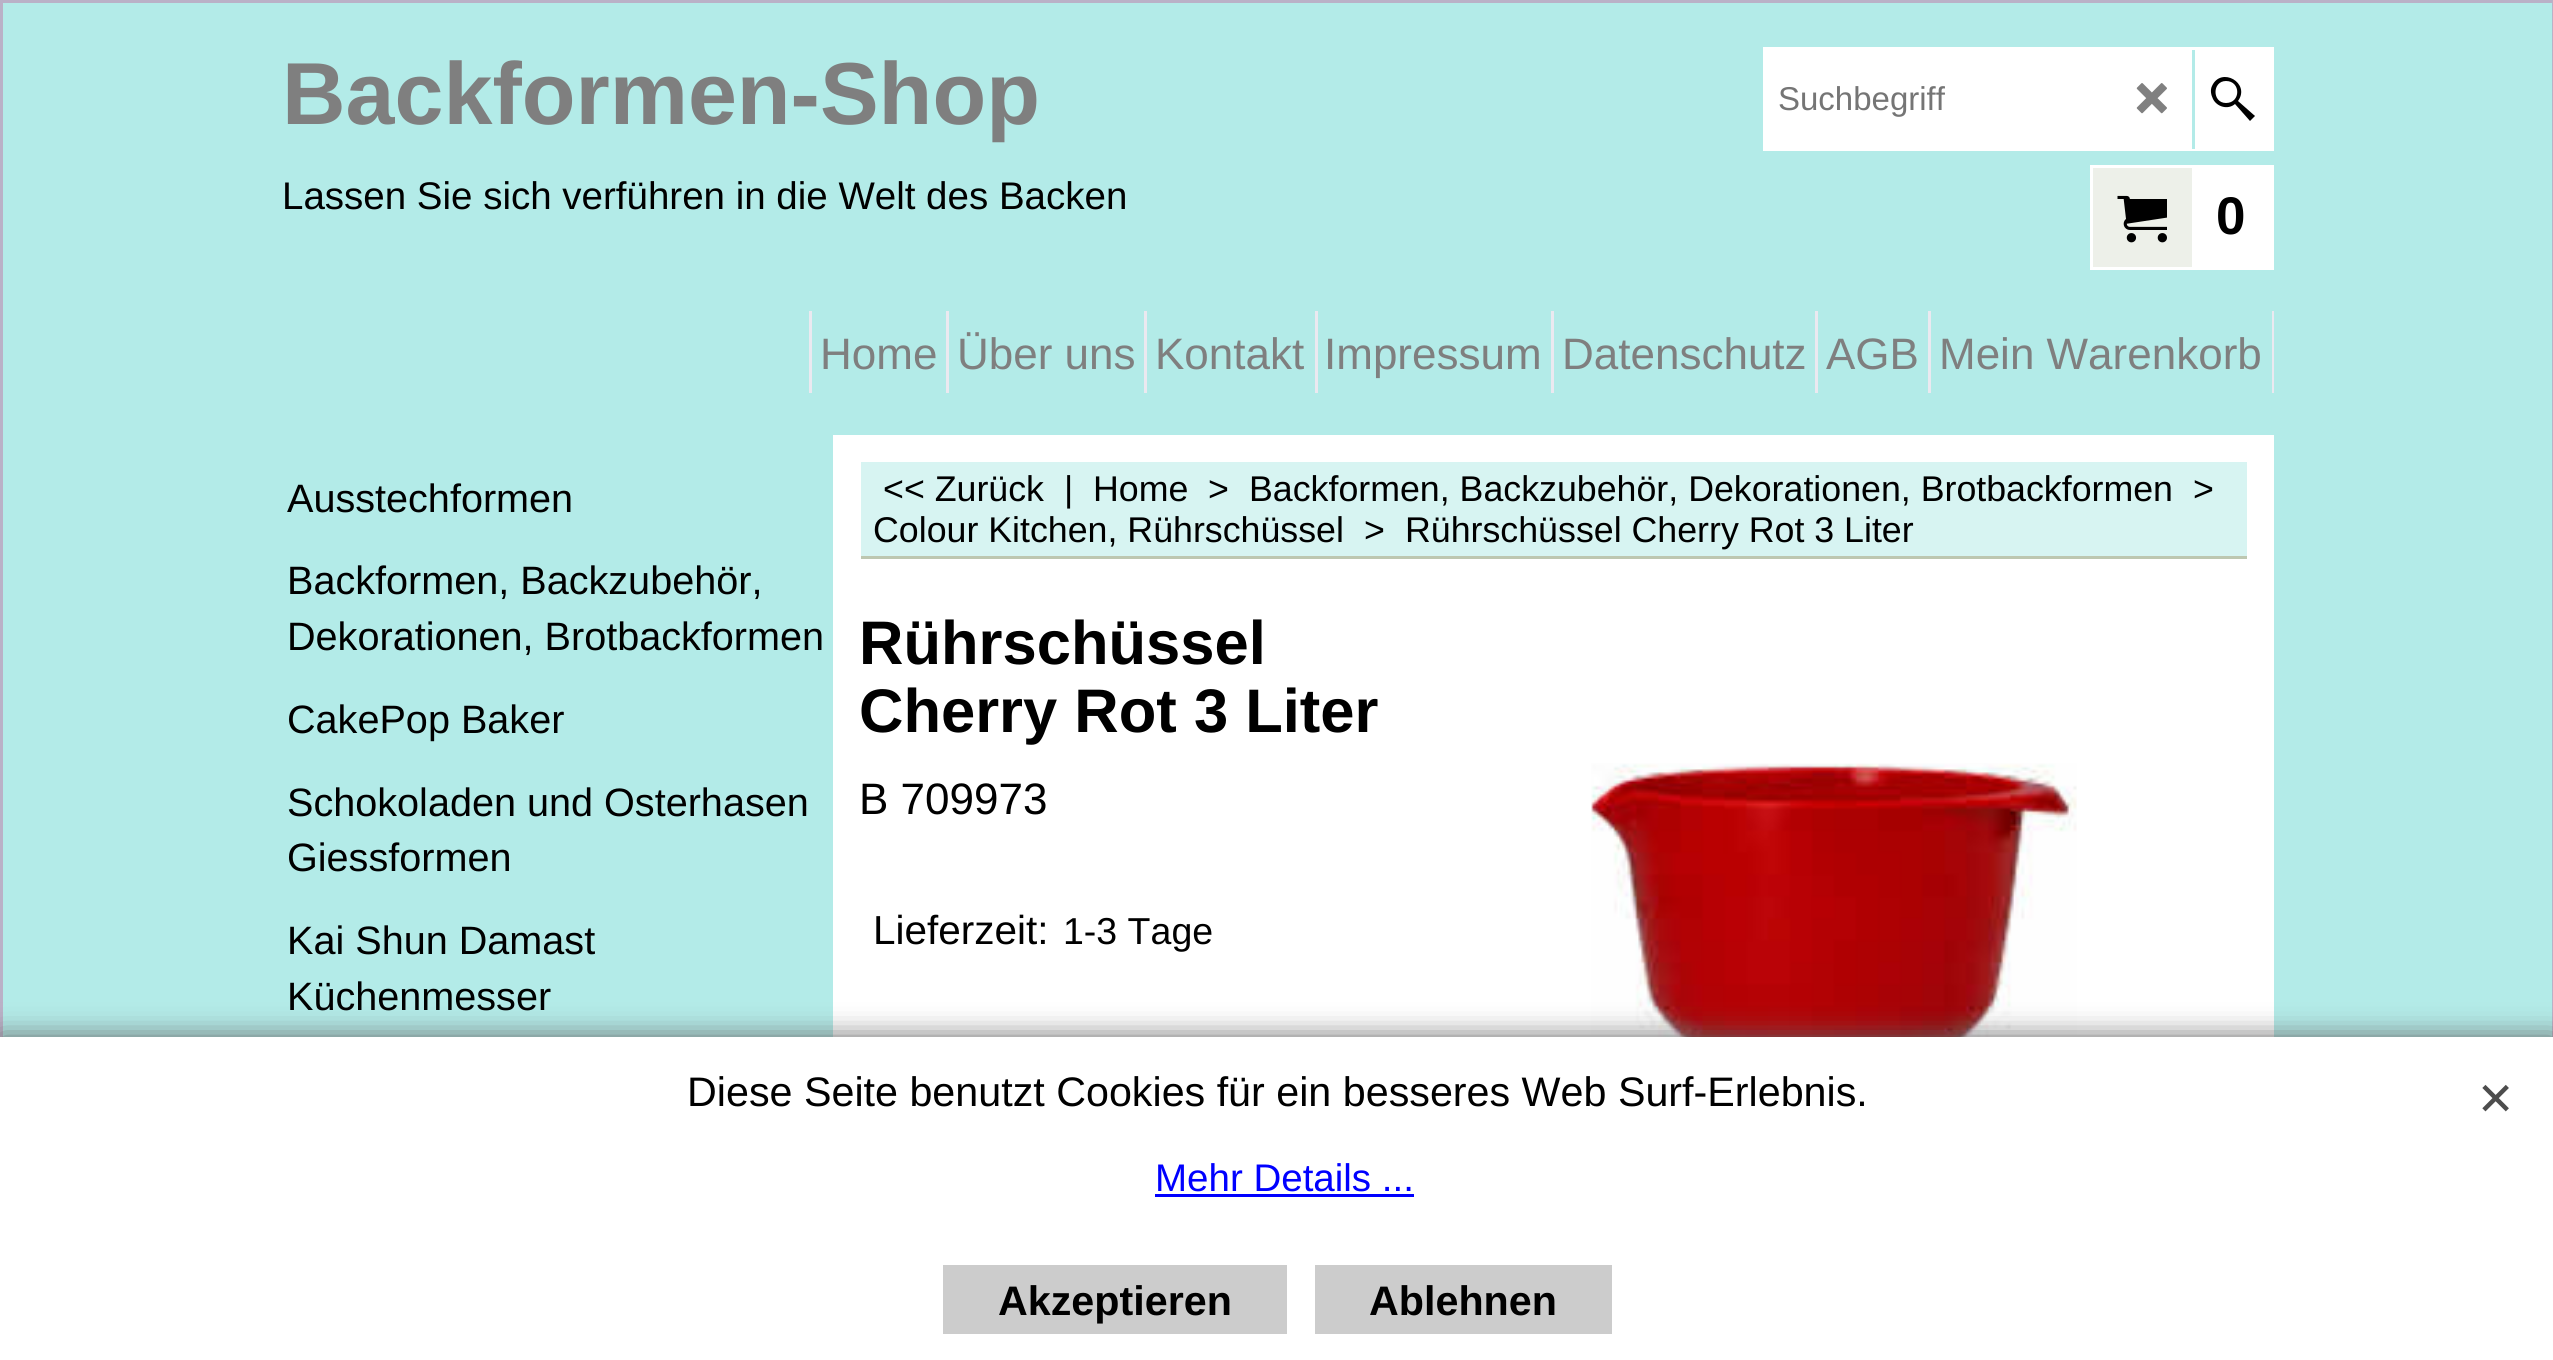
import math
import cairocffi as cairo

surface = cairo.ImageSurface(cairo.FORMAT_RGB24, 2553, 1360)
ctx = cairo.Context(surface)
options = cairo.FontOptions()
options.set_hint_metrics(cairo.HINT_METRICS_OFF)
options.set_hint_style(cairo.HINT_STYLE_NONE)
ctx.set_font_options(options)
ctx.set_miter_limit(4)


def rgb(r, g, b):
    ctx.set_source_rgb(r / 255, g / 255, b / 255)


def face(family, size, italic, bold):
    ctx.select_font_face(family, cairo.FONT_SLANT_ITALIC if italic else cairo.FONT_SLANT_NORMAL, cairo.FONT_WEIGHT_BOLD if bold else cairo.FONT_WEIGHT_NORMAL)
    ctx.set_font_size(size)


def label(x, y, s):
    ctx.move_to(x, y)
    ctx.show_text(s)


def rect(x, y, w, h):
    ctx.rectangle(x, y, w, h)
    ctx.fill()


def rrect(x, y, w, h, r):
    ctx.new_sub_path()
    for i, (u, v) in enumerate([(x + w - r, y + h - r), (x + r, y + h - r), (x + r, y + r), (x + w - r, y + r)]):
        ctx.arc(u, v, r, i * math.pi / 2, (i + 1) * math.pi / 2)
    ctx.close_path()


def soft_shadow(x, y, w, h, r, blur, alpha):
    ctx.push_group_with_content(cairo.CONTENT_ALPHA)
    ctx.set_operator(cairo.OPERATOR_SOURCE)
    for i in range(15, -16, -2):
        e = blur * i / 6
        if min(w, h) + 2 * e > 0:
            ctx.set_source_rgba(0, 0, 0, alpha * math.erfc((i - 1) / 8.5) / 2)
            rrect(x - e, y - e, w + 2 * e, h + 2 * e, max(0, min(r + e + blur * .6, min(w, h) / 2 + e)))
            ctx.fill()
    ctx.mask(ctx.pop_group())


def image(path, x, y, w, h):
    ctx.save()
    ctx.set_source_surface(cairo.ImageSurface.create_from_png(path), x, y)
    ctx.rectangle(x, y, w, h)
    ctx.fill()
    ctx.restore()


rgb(179, 235, 232)
ctx.paint()
ctx.rectangle(1.5, 1.5, 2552, 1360)
rgb(186, 177, 199)
ctx.set_line_width(3)
ctx.stroke()
face('Liberation Sans', 88, 0, 1)
rgb(127, 127, 127)
label(282, 124, 'Backformen-Shop')
face('Liberation Sans', 38.5, 0, 0)
rgb(0, 0, 0)
label(282, 209, 'Lassen Sie sich verführen in die Welt des Backen')
ctx.rectangle(1764.5, 48.5, 508, 101)
rgb(255, 255, 255)
ctx.stroke()
rect(1766, 50, 426, 98)
face('Liberation Sans', 33, 0, 0)
rgb(117, 117, 117)
label(1778, 110, 'Suchbegriff')
image('image0.png', 2136, 83, 31, 31)
rgb(255, 255, 255)
rect(2195, 50, 76, 98)
rgb(179, 235, 232)
rect(2192, 148, 3, 1)
rgb(0, 0, 0)
ctx.new_path()
ctx.move_to(2238, 101)
ctx.curve_to(2251, 83, 2221, 66, 2212, 86)
ctx.curve_to(2210, 90, 2211, 95, 2213, 99)
ctx.curve_to(2217, 107, 2228, 110, 2235, 104)
ctx.line_to(2250, 121)
ctx.line_to(2255, 116)
ctx.close_path()
ctx.move_to(2226, 103)
ctx.curve_to(2212, 103, 2212, 81, 2226, 81)
ctx.curve_to(2241, 81, 2241, 103, 2226, 103)
ctx.close_path()
ctx.fill()
rgb(255, 255, 255)
rect(2195, 165, 79, 105)
rgb(237, 240, 233)
ctx.rectangle(2091.5, 166.5, 102, 102)
ctx.fill_preserve()
rgb(255, 255, 255)
ctx.stroke()
image('image1.png', 2117, 195, 50, 48)
face('Liberation Sans', 53, 0, 1)
rgb(0, 0, 0)
label(2216, 234, '0')
rgb(235, 233, 240)
rect(809, 311, 3, 82)
face('Liberation Sans', 44, 0, 0)
rgb(127, 127, 127)
label(820, 369, 'Home')
rgb(235, 233, 240)
rect(946, 311, 3, 82)
rgb(127, 127, 127)
label(957, 369, 'Über uns')
rgb(235, 233, 240)
rect(1144, 311, 3, 82)
rgb(127, 127, 127)
label(1155, 369, 'Kontakt')
rgb(235, 233, 240)
rect(1315, 311, 3, 82)
rgb(127, 127, 127)
label(1324, 369, 'Impressum')
rgb(235, 233, 240)
rect(1551, 311, 3, 82)
rgb(127, 127, 127)
label(1562, 369, 'Datenschutz')
rgb(235, 233, 240)
rect(1815, 311, 3, 82)
rgb(127, 127, 127)
label(1826, 369, 'AGB')
rgb(235, 233, 240)
rect(1928, 311, 3, 82)
rgb(127, 127, 127)
label(1939, 369, 'Mein Warenkorb')
rgb(235, 233, 240)
rect(2272, 311, 2, 82)
face('Liberation Sans', 39.6, 0, 0)
rgb(0, 0, 0)
label(287, 512, 'Ausstechformen')
label(287, 594, 'Backformen, Backzubehör,')
label(287, 650, 'Dekorationen, Brotbackformen')
label(287, 733, 'CakePop Baker')
label(287, 816, 'Schokoladen und Osterhasen')
label(287, 871, 'Giessformen')
label(287, 954, 'Kai Shun Damast')
label(287, 1010, 'Küchenmesser')
rgb(255, 255, 255)
rect(833, 435, 1441, 602)
rgb(215, 244, 242)
rect(861, 462, 1386, 94)
rgb(189, 199, 177)
rect(861, 556, 1386, 3)
face('Liberation Sans', 35.75, 0, 0)
rgb(0, 0, 0)
label(883, 501, '<< Zurück')
label(1064, 501, '|')
label(1093, 501, 'Home')
label(1208, 501, '>')
label(1249, 501, 'Backformen, Backzubehör, Dekorationen, Brotbackformen')
label(2193, 501, '>')
label(873, 542, 'Colour Kitchen, Rührschüssel')
label(1364, 542, '>')
label(1405, 542, 'Rührschüssel Cherry Rot 3 Liter')
face('Liberation Sans', 61.5, 0, 1)
label(859, 664, 'Rührschüssel')
label(859, 732, 'Cherry Rot 3 Liter')
face('Liberation Sans', 44, 0, 0)
label(859, 814, 'B 709973')
face('Liberation Sans', 40.5, 0, 0)
label(873, 944, 'Lieferzeit:')
face('Liberation Sans', 37.5, 0, 0)
label(1063, 944, '1-3 Tage')
image('image2.png', 1591, 763, 486, 274)
rgb(102, 102, 102)
soft_shadow(0, 1037, 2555, 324, 0, 14, 1)
rgb(255, 255, 255)
rect(0, 1037, 2553, 323)
face('Liberation Sans', 41.25, 0, 0)
rgb(0, 0, 0)
label(687, 1106, 'Diese Seite benutzt Cookies für ein besseres Web Surf-Erlebnis.')
face('Liberation Sans', 38.5, 0, 0)
rgb(0, 0, 255)
label(1155, 1191, 'Mehr Details ...')
rect(1155, 1194, 259, 3)
image('image3.png', 2482, 1084, 27, 28)
rgb(204, 204, 204)
rect(943, 1265, 344, 69)
face('Liberation Sans', 41.25, 0, 1)
rgb(0, 0, 0)
label(998, 1315, 'Akzeptieren')
rgb(204, 204, 204)
rect(1315, 1265, 297, 69)
rgb(0, 0, 0)
label(1369, 1315, 'Ablehnen')
surface.write_to_png('render.png')
